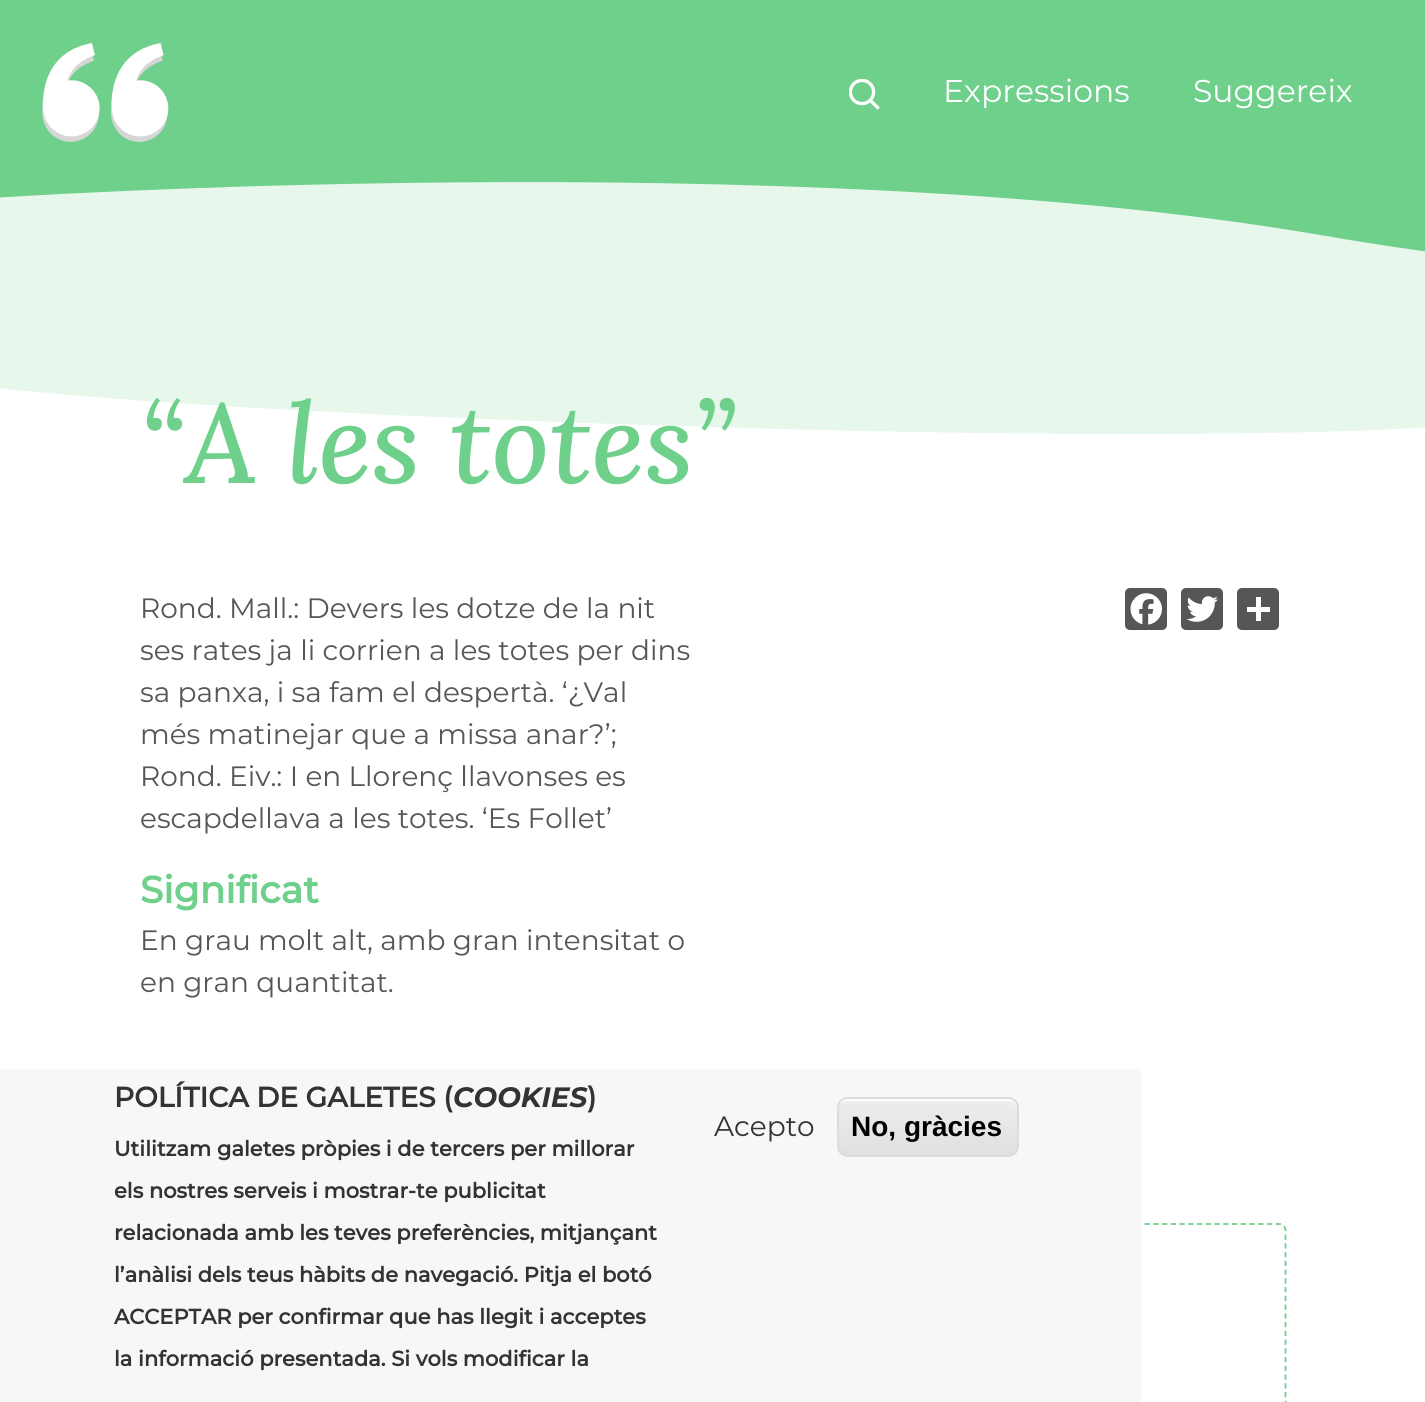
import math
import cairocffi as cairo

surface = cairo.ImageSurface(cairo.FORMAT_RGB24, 1425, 1402)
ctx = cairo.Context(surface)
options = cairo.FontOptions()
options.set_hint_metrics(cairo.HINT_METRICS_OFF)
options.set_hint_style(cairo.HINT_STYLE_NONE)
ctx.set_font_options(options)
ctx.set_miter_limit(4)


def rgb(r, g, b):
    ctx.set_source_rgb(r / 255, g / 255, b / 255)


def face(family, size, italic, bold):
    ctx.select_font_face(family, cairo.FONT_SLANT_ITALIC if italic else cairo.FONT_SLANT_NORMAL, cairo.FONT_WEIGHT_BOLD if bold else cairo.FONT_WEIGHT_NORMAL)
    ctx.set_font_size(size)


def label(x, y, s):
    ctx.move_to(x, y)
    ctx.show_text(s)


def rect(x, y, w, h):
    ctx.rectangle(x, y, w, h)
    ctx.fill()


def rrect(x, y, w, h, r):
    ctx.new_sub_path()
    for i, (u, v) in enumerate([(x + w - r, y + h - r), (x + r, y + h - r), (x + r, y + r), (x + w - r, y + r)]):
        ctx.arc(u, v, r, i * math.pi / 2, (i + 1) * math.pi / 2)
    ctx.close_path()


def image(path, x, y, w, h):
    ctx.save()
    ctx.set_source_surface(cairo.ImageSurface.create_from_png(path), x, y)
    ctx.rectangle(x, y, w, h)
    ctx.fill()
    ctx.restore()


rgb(255, 255, 255)
ctx.paint()
image('image0.png', 0, 182, 1425, 252)
rgb(111, 208, 140)
ctx.new_path()
ctx.move_to(-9, 0)
ctx.line_to(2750, 0)
ctx.line_to(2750, 260)
ctx.curve_to(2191, 250, 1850, 327, 1320, 235)
ctx.curve_to(791, 144, -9, 198, -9, 198)
ctx.close_path()
ctx.fill()
image('image1.png', 42, 43, 127, 99)
image('image2.png', 849, 79, 31, 31)
face('Montserrat', 31.5, 0, 0)
rgb(255, 255, 255)
label(943, 102, 'Expressions')
label(1193, 102, 'Suggereix')
face('Lora Medium', 112, 1, 0)
rgb(111, 208, 140)
label(140, 483, '“A les totes”')
face('Montserrat', 28, 0, 0)
rgb(86, 86, 86)
label(140, 618, 'Rond. Mall.: Devers les dotze de la nit')
label(140, 660, 'ses rates ja li corrien a les totes per dins')
label(140, 702, 'sa panxa, i sa fam el despertà. ‘¿Val')
label(140, 744, 'més matinejar que a missa anar?’;')
label(140, 786, 'Rond. Eiv.: I en Llorenç llavonses es')
label(140, 828, 'escapdellava a les totes. ‘Es Follet’')
face('Montserrat', 37.5, 0, 1)
rgb(111, 208, 140)
label(140, 903, 'Significat')
face('Montserrat', 28, 0, 0)
rgb(86, 86, 86)
label(140, 950, 'En grau molt alt, amb gran intensitat o')
label(140, 992, 'en gran quantitat.')
rrect(1125, 588, 42, 42, 5)
ctx.fill()
image('image3.png', 1130, 593, 32, 32)
rrect(1181, 588, 42, 42, 5)
ctx.fill()
image('image4.png', 1186, 596, 32, 26)
rrect(1237, 588, 42, 42, 5)
ctx.fill()
rgb(255, 255, 255)
rect(1256, 597, 5, 24)
rect(1247, 607, 23, 5)
ctx.new_path()
ctx.move_to(147, 1224)
ctx.line_to(1279, 1224)
ctx.curve_to(1282.5, 1224, 1285.5, 1227, 1285.5, 1230)
ctx.line_to(1285.5, 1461)
ctx.curve_to(1285.5, 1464.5, 1282.5, 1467.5, 1279, 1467.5)
ctx.line_to(147, 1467.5)
ctx.curve_to(143.5, 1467.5, 141, 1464.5, 141, 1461)
ctx.line_to(141, 1230)
ctx.curve_to(141, 1227, 143.5, 1224, 147, 1224)
ctx.close_path()
rgb(111, 208, 140)
ctx.set_line_width(1.8)
ctx.set_dash([5.25, 3.5])
ctx.stroke()
rgb(247, 247, 247)
rect(0, 1069, 1141, 333)
face('Montserrat', 28, 0, 1)
rgb(51, 51, 51)
label(114, 1107, 'POLÍTICA DE GALETES (')
face('Montserrat', 28, 1, 1)
label(453, 1107, 'COOKIES')
face('Montserrat', 28, 0, 1)
label(587, 1107, ')')
face('Montserrat', 21, 0, 1)
label(114, 1156, 'Utilitzam galetes pròpies i de tercers per millorar')
label(114, 1198, 'els nostres serveis i mostrar-te publicitat')
label(114, 1240, 'relacionada amb les teves preferències, mitjançant')
label(114, 1282, 'l’anàlisi dels teus hàbits de navegació. Pitja el botó')
label(114, 1324, 'ACCEPTAR per confirmar que has llegit i acceptes')
label(114, 1366, 'la informació presentada. Si vols modificar la')
face('Montserrat', 28, 0, 0)
label(714, 1136, 'Acepto')
ctx.save()
rrect(837, 1097, 182, 60, 11)
ctx.clip()
gradient = cairo.LinearGradient(928, 1099, 928, 1155)
gradient.add_color_stop_rgba(0.05, 0.929, 0.929, 0.929, 1)
gradient.add_color_stop_rgba(1, 0.875, 0.875, 0.875, 1)
ctx.set_source(gradient)
rect(837, 1099, 182, 56)
ctx.restore()
rgb(255, 255, 255)
ctx.new_path()
ctx.move_to(847, 1101)
ctx.line_to(1008, 1101)
ctx.curve_to(1013, 1101, 1017, 1105, 1017, 1110)
ctx.line_to(1017, 1108)
ctx.curve_to(1017, 1103, 1013, 1099, 1008, 1099)
ctx.line_to(847, 1099)
ctx.curve_to(842, 1099, 838, 1103, 838, 1108)
ctx.line_to(838, 1110)
ctx.curve_to(838, 1105, 842, 1101, 847, 1101)
ctx.close_path()
ctx.fill()
rrect(838, 1098, 180, 58, 10)
rgb(220, 220, 220)
ctx.set_line_width(2)
ctx.set_dash([])
ctx.stroke()
face('Liberation Sans', 28, 0, 1)
rgb(0, 0, 0)
label(851, 1136, 'No, gràcies')
surface.write_to_png('render.png')
